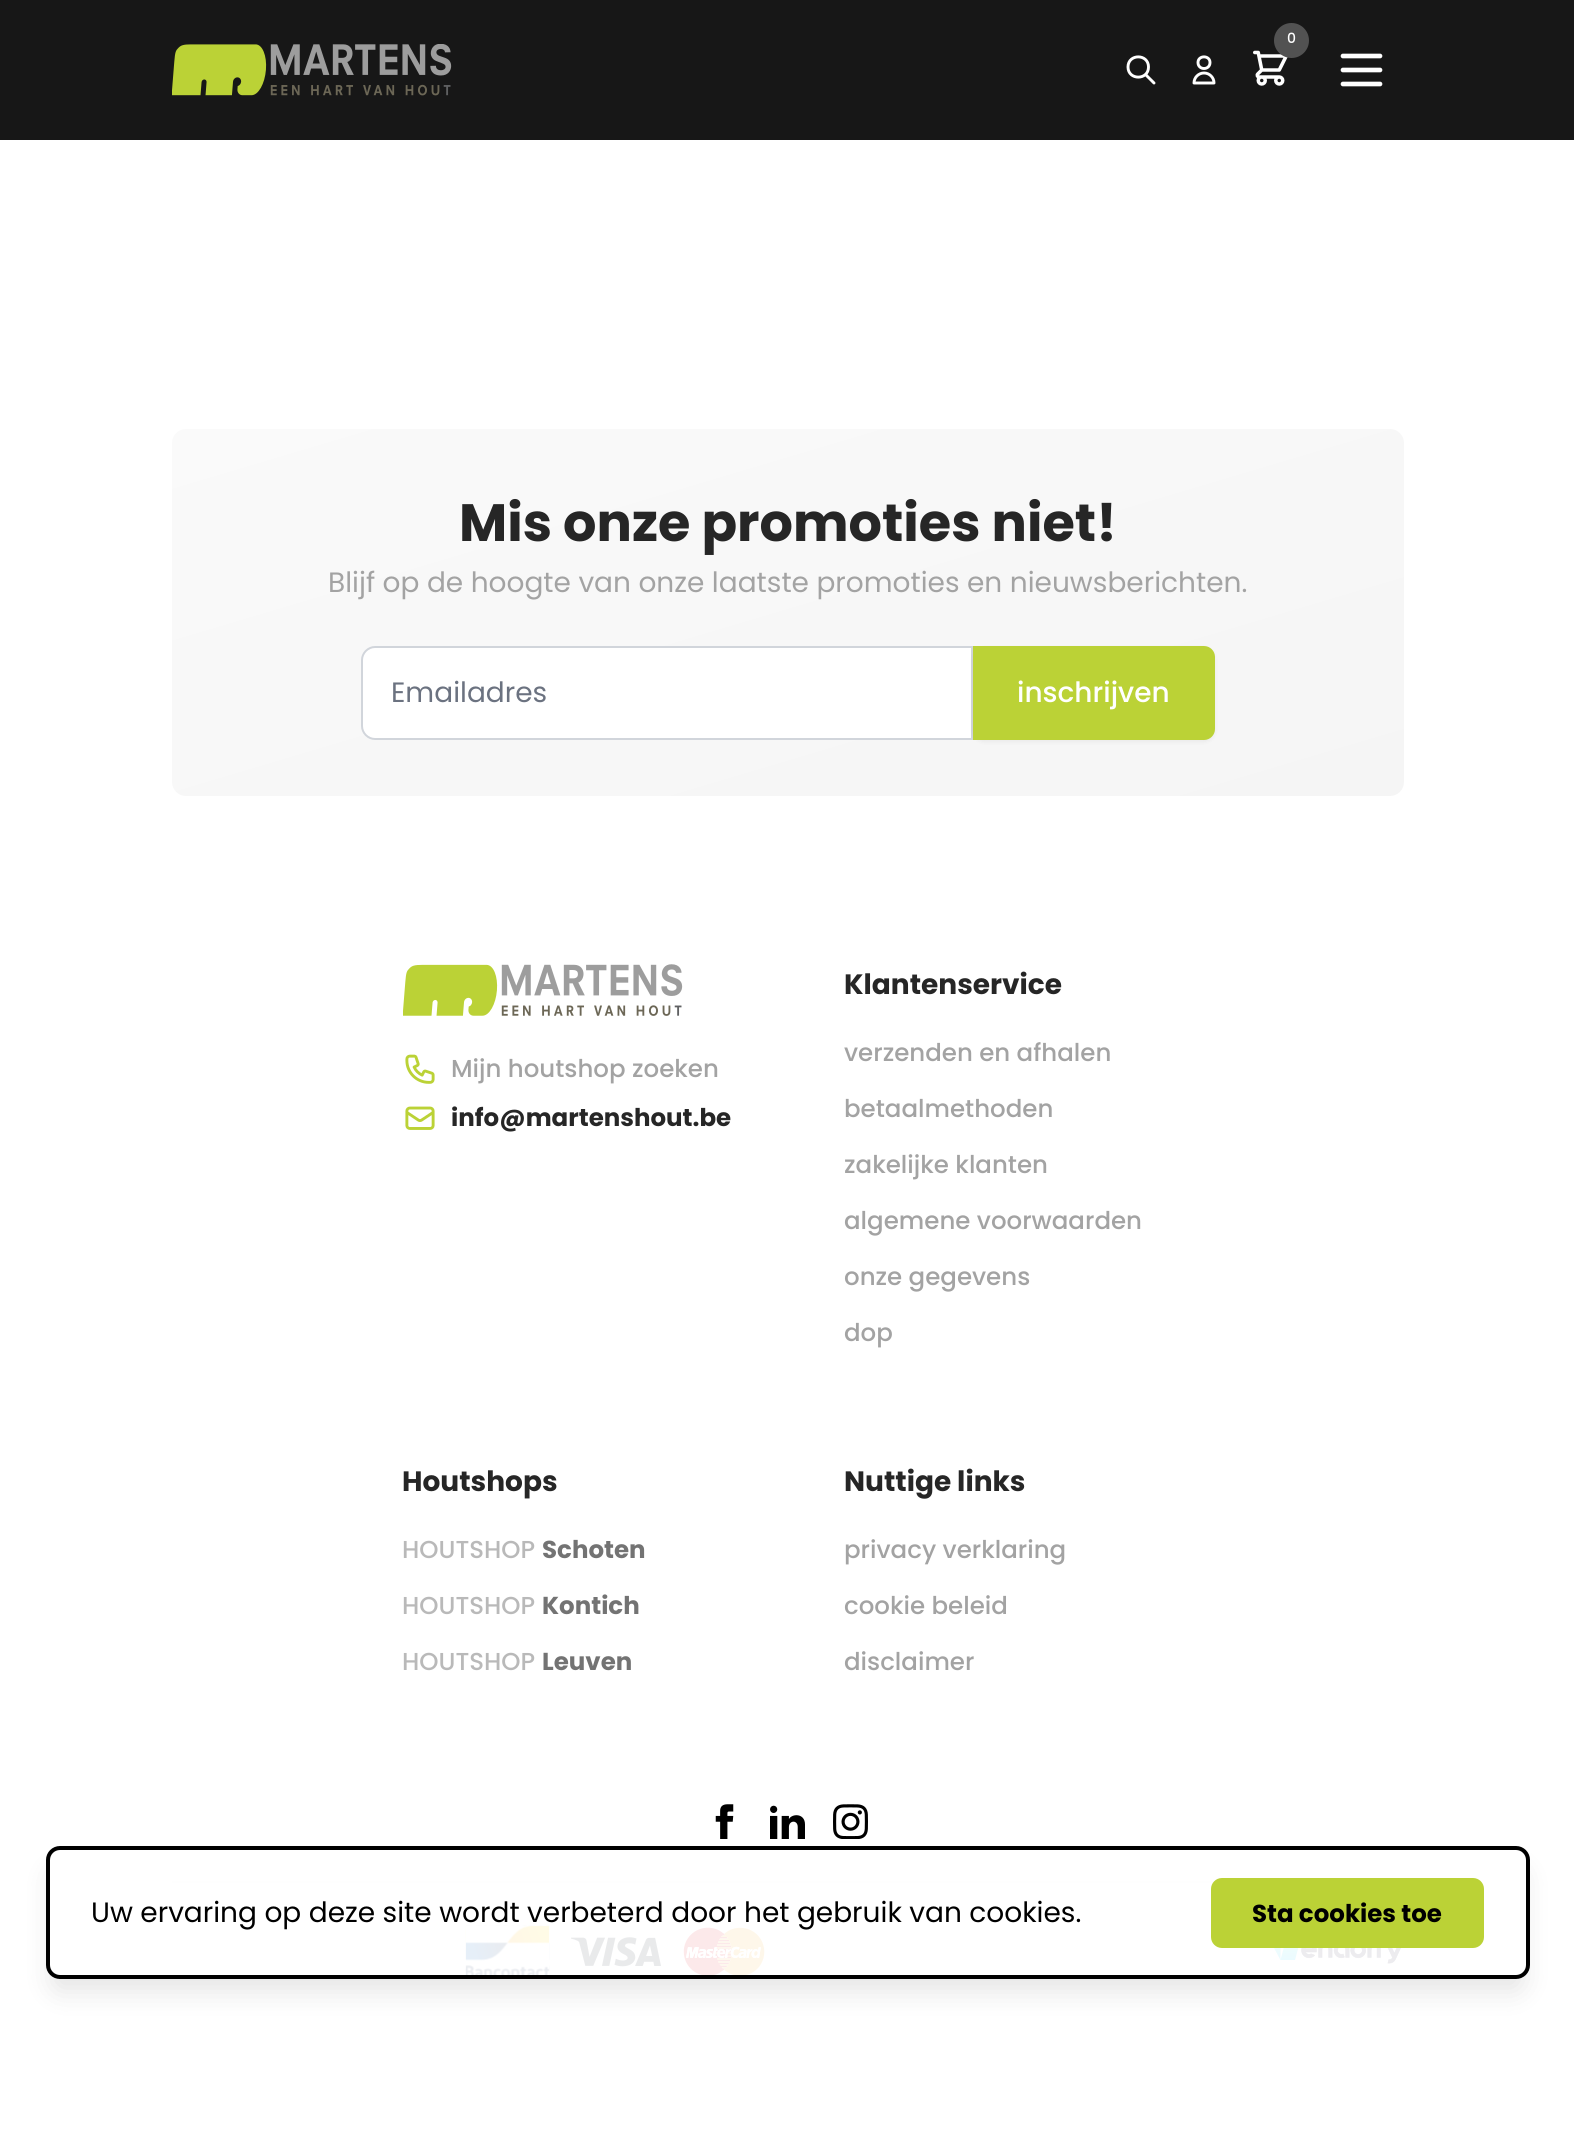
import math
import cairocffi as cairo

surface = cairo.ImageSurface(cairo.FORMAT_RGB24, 1574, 2133)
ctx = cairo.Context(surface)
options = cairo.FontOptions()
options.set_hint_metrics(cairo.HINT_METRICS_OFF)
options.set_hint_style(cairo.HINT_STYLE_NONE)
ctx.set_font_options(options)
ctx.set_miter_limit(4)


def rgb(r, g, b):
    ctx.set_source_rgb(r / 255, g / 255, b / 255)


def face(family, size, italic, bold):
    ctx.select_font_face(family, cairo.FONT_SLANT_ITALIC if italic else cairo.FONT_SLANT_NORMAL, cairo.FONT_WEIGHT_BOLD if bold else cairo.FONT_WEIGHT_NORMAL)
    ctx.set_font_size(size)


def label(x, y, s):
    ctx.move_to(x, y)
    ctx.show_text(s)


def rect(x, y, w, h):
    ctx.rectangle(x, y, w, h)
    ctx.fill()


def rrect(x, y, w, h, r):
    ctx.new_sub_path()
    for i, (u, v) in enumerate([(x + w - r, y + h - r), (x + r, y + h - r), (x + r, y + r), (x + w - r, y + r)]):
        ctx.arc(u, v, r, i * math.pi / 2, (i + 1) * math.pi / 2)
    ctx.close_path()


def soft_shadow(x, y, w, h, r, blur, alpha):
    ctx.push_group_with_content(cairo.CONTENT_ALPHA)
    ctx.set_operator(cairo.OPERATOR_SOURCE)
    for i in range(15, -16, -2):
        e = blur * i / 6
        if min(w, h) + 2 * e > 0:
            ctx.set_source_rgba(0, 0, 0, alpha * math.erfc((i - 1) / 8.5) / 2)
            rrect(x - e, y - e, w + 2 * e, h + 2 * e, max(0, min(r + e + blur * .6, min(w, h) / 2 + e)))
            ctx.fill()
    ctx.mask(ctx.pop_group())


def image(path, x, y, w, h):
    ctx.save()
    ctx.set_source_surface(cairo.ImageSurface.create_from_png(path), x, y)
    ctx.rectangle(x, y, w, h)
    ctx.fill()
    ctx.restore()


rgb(255, 255, 255)
ctx.paint()
rgb(23, 23, 23)
rect(0, 0, 1574, 140)
image('image0.png', 1253, 50, 35, 36)
rgb(82, 82, 82)
ctx.arc(1291.5, 40.5, 17.5, 0, 2 * math.pi)
ctx.fill()
face('Poppins Medium', 14, 0, 0)
rgb(255, 255, 255)
label(1287, 43, '0')
ctx.new_path()
ctx.move_to(1154, 83)
ctx.line_to(1145.5, 74.5)
ctx.move_to(1148.5, 67)
ctx.curve_to(1148.5, 80.5, 1128, 80.5, 1128, 67)
ctx.curve_to(1128, 53.5, 1148.5, 53.5, 1148.5, 67)
ctx.close_path()
ctx.set_line_width(2.9)
ctx.set_line_cap(cairo.LINE_CAP_ROUND)
ctx.set_line_join(cairo.LINE_JOIN_ROUND)
ctx.stroke()
ctx.new_path()
ctx.move_to(1210, 62.5)
ctx.curve_to(1210, 70.5, 1198, 70.5, 1198, 62.5)
ctx.curve_to(1198, 55, 1210, 55, 1210, 62.5)
ctx.close_path()
ctx.move_to(1204, 73)
ctx.curve_to(1198.5, 73, 1194, 77.5, 1194, 83)
ctx.line_to(1214, 83)
ctx.curve_to(1214, 77.5, 1209.5, 73, 1204, 73)
ctx.close_path()
ctx.stroke()
ctx.new_path()
ctx.move_to(1343, 56)
ctx.line_to(1380, 56)
ctx.move_to(1343, 70)
ctx.line_to(1380, 70)
ctx.move_to(1343, 84)
ctx.line_to(1380, 84)
ctx.set_line_width(4.7)
ctx.stroke()
image('image1.png', 172, 44, 280, 52)
gradient = cairo.LinearGradient(687, 275, 888, 950)
gradient.add_color_stop_rgba(0, 0.98, 0.98, 0.98, 1)
gradient.add_color_stop_rgba(1, 0.961, 0.961, 0.961, 1)
ctx.set_source(gradient)
rrect(172, 429, 1232, 367, 14)
ctx.fill()
face('Poppins', 52.5, 0, 1)
rgb(38, 38, 38)
label(459, 541, 'Mis onze promoties niet!')
face('Poppins', 28, 0, 0)
rgb(163, 163, 163)
label(328, 592, 'Blijf op de hoogte van onze laatste promoties en nieuwsberichten.')
rgb(255, 255, 255)
ctx.new_path()
ctx.move_to(375, 647)
ctx.line_to(972, 647)
ctx.line_to(972, 739)
ctx.line_to(375, 739)
ctx.curve_to(368, 739, 362, 733, 362, 726)
ctx.line_to(362, 660)
ctx.curve_to(362, 653, 368, 647, 375, 647)
ctx.close_path()
ctx.fill_preserve()
rgb(209, 213, 219)
ctx.set_line_width(2)
ctx.set_line_cap(cairo.LINE_CAP_BUTT)
ctx.set_line_join(cairo.LINE_JOIN_MITER)
ctx.stroke()
rgb(107, 114, 128)
label(391, 702, 'Emailadres')
rgb(0, 0, 0)
soft_shadow(973, 648, 242, 94, 11, 2, 0.05)
rgb(187, 210, 54)
ctx.new_path()
ctx.move_to(974, 647)
ctx.line_to(1204, 647)
ctx.curve_to(1209.5, 647, 1214, 651.5, 1214, 657)
ctx.line_to(1214, 729)
ctx.curve_to(1214, 734.5, 1209.5, 739, 1204, 739)
ctx.line_to(974, 739)
ctx.close_path()
ctx.fill_preserve()
ctx.stroke()
face('Poppins Medium', 28, 0, 0)
rgb(255, 255, 255)
label(1017, 702, 'inschrijven')
image('image2.png', 403, 964, 280, 52)
image('image3.png', 405, 1054, 30, 30)
face('Poppins Medium', 24.5, 0, 0)
rgb(163, 163, 163)
label(451, 1077, 'Mijn houtshop zoeken')
image('image4.png', 405, 1106, 30, 24)
face('Poppins', 24.5, 0, 1)
rgb(38, 38, 38)
label(451, 1126, 'info@martenshout.be')
face('Poppins', 28, 0, 1)
label(844, 994, 'Klantenservice')
face('Poppins Medium', 24.5, 0, 0)
rgb(163, 163, 163)
label(844, 1061, 'verzenden en afhalen')
label(844, 1117, 'betaalmethoden')
label(844, 1173, 'zakelijke klanten')
label(844, 1229, 'algemene voorwaarden')
label(844, 1285, 'onze gegevens')
label(844, 1341, 'dop')
face('Poppins', 28, 0, 1)
rgb(38, 38, 38)
label(402, 1491, 'Houtshops')
face('Poppins Medium', 24.5, 0, 0)
rgb(185, 185, 185)
label(402, 1558, 'HOUTSHOP')
face('Poppins', 24.5, 0, 1)
rgb(115, 115, 115)
label(542, 1558, 'Schoten')
face('Poppins Medium', 24.5, 0, 0)
rgb(185, 185, 185)
label(402, 1614, 'HOUTSHOP')
face('Poppins', 24.5, 0, 1)
rgb(115, 115, 115)
label(542, 1614, 'Kontich')
face('Poppins Medium', 24.5, 0, 0)
rgb(185, 185, 185)
label(402, 1670, 'HOUTSHOP')
face('Poppins', 24.5, 0, 1)
rgb(115, 115, 115)
label(542, 1670, 'Leuven')
face('Poppins', 28, 0, 1)
rgb(38, 38, 38)
label(844, 1491, 'Nuttige links')
face('Poppins Medium', 24.5, 0, 0)
rgb(163, 163, 163)
label(844, 1558, 'privacy verklaring')
label(844, 1614, 'cookie beleid')
label(844, 1670, 'disclaimer')
image('image5.png', 715, 1804, 19, 35)
image('image6.png', 770, 1805, 35, 34)
image('image7.png', 833, 1804, 35, 35)
rgb(245, 245, 245)
rect(172, 1881, 1043, 2)
image('image8.png', 465, 1925, 85, 50)
image('image9.png', 571, 1937, 90, 30)
image('image10.png', 683, 1927, 82, 48)
image('image11.png', 1274, 1948, 127, 16)
ctx.save()
ctx.set_fill_rule(cairo.FILL_RULE_EVEN_ODD)
ctx.new_path()
ctx.move_to(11, 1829)
ctx.line_to(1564, 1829)
ctx.line_to(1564, 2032)
ctx.line_to(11, 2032)
ctx.close_path()
ctx.move_to(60, 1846)
ctx.line_to(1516, 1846)
ctx.curve_to(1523.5, 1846, 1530, 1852.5, 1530, 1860)
ctx.line_to(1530, 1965)
ctx.curve_to(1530, 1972.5, 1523.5, 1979, 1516, 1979)
ctx.line_to(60, 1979)
ctx.curve_to(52.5, 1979, 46, 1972.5, 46, 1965)
ctx.line_to(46, 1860)
ctx.curve_to(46, 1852.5, 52.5, 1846, 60, 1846)
ctx.close_path()
ctx.clip()
rgb(0, 0, 0)
soft_shadow(51, 1869, 1473, 123, 9, 13, 0.1)
ctx.restore()
ctx.set_source_rgba(1, 1, 1, 0.9)
rrect(48, 1848, 1480, 129, 12)
ctx.fill_preserve()
rgb(0, 0, 0)
ctx.set_line_width(4)
ctx.stroke()
face('Poppins', 28, 0, 0)
label(91, 1922, 'Uw ervaring op deze site wordt verbeterd door het gebruik van cookies.')
rgb(187, 210, 54)
rrect(1211, 1878, 273, 70, 11)
ctx.fill()
face('Poppins', 24.5, 0, 1)
rgb(0, 0, 0)
label(1252, 1922, 'Sta cookies toe')
surface.write_to_png('render.png')
